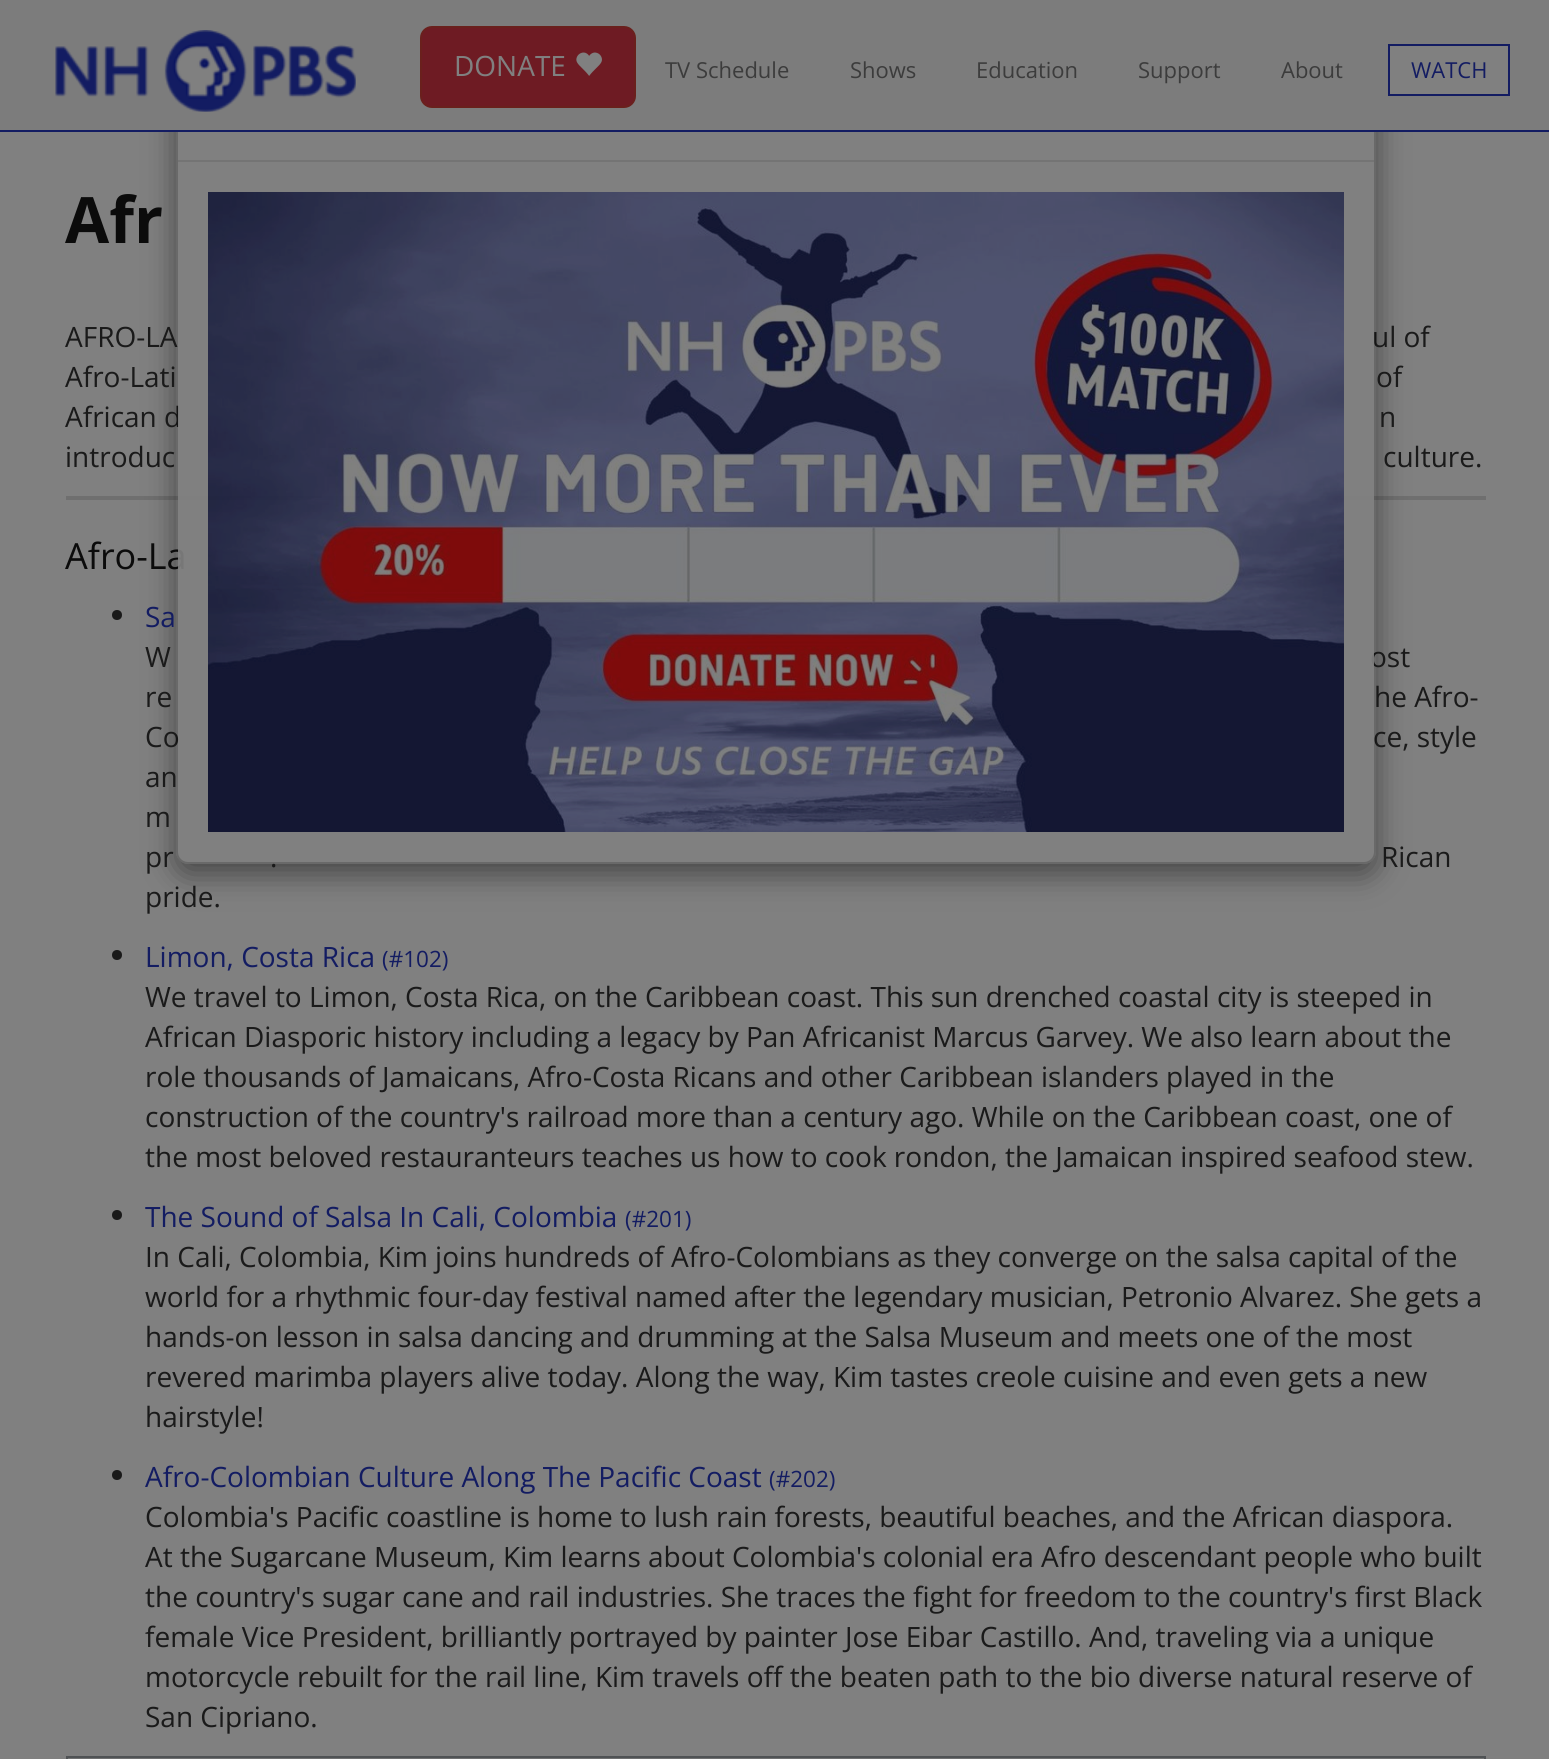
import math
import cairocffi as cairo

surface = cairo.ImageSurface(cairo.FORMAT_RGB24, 1549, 1759)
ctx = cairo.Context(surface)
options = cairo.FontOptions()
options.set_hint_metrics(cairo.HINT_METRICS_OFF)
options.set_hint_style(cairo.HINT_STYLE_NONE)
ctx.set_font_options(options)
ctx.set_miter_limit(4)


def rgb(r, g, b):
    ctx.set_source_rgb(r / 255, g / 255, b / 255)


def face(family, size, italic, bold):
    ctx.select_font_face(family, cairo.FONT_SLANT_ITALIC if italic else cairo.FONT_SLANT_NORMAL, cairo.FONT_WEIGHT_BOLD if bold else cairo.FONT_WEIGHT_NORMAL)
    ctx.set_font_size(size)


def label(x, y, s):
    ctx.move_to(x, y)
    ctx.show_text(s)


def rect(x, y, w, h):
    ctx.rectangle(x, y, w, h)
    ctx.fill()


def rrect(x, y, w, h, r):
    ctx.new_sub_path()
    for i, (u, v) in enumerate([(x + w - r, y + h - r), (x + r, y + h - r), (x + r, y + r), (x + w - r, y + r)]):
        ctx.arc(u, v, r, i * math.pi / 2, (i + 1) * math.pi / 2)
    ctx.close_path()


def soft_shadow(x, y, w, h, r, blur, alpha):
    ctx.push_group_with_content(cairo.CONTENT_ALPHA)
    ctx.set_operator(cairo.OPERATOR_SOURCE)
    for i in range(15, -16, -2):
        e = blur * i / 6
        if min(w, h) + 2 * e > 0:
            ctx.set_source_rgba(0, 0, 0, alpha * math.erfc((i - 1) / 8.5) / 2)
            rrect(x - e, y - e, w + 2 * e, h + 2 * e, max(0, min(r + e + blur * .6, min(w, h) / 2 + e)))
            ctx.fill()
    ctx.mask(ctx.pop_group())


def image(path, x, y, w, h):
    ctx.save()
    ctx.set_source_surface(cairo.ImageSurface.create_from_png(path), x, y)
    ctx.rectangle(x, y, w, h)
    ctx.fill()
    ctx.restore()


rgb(128, 128, 128)
ctx.paint()
rgb(111, 111, 111)
rect(66, 496, 1420, 4)
ctx.save()
ctx.set_fill_rule(cairo.FILL_RULE_EVEN_ODD)
ctx.new_path()
ctx.move_to(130, 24)
ctx.line_to(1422, 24)
ctx.line_to(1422, 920)
ctx.line_to(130, 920)
ctx.close_path()
ctx.move_to(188, 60)
ctx.line_to(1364, 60)
ctx.curve_to(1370.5, 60, 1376, 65.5, 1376, 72)
ctx.line_to(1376, 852)
ctx.curve_to(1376, 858.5, 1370.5, 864, 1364, 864)
ctx.line_to(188, 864)
ctx.curve_to(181.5, 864, 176, 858.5, 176, 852)
ctx.line_to(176, 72)
ctx.curve_to(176, 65.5, 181.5, 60, 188, 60)
ctx.close_path()
ctx.clip()
rgb(0, 0, 0)
soft_shadow(176, 70, 1200, 804, 12, 15, 0.46)
ctx.restore()
face('Open Sans', 28, 0, 0)
rgb(26, 26, 26)
label(65, 427, 'African d')
face('Open Sans', 36, 0, 0)
rgb(11, 11, 11)
label(65, 569, 'Afro-La')
face('Open Sans', 28, 0, 0)
rgb(26, 26, 26)
label(1370, 667, 'ost')
ctx.set_source_rgba(0.502, 0.502, 0.502, 0.92)
rrect(178, 62, 1196, 800, 10)
ctx.fill()
rgb(26, 26, 26)
label(65, 347, 'AFRO-LA')
label(1372, 347, 'ul of')
label(145, 747, 'Co')
label(1373, 747, 'ce, style')
label(270, 867, '.')
rrect(177, 61, 1198, 802, 11)
ctx.set_source_rgba(0, 0, 0, 0.18)
ctx.stroke()
rgb(116, 116, 116)
rect(178, 160, 1196, 2)
image('image0.png', 208, 192, 1136, 640)
rgb(124, 124, 124)
rect(0, 0, 1549, 130)
rgb(19, 28, 98)
rect(0, 130, 1549, 2)
image('image1.png', 55, 30, 301, 82)
rgb(110, 27, 35)
rrect(421, 27, 214, 80, 11)
ctx.fill_preserve()
rgb(106, 32, 29)
ctx.stroke()
rgb(128, 128, 128)
label(454, 76, 'DONATE')
image('image2.png', 576, 52, 26, 24)
face('Open Sans', 22, 0, 0)
rgb(60, 60, 60)
label(665, 78, 'TV Schedule')
label(850, 78, 'Shows')
label(976, 78, 'Education')
label(1138, 78, 'Support')
label(1281, 78, 'About')
rgb(128, 128, 128)
ctx.rectangle(1389, 45, 120, 50)
ctx.fill_preserve()
rgb(19, 28, 98)
ctx.stroke()
label(1411, 78, 'WATCH')
face('Open Sans', 64, 0, 1)
rgb(11, 11, 11)
label(65, 243, 'Afr')
face('Open Sans', 28, 0, 0)
rgb(26, 26, 26)
label(65, 387, 'Afro-Lati')
label(1376, 387, 'of')
label(1379, 427, 'n')
label(65, 467, 'introduc')
label(1383, 467, 'culture.')
ctx.new_path()
ctx.arc(117, 615, 5, 0, 2 * math.pi)
ctx.fill()
rgb(19, 28, 98)
label(145, 627, 'Sa')
rgb(26, 26, 26)
label(145, 667, 'W')
label(145, 707, 're')
label(1374, 707, 'he Afro-')
label(145, 787, 'an')
label(145, 827, 'm')
label(145, 867, 'pr')
label(1381, 867, 'Rican')
label(145, 907, 'pride.')
ctx.new_path()
ctx.arc(117, 955, 5, 0, 2 * math.pi)
ctx.fill()
rgb(19, 28, 98)
label(145, 967, 'Limon, Costa Rica')
face('Open Sans', 22.5, 0, 0)
label(382, 967, '(#102)')
face('Open Sans', 28, 0, 0)
rgb(26, 26, 26)
label(145, 1007, 'We travel to Limon, Costa Rica, on the Caribbean coast. This sun drenched coastal city is steeped in')
label(145, 1047, 'African Diasporic history including a legacy by Pan Africanist Marcus Garvey. We also learn about the')
label(145, 1087, 'role thousands of Jamaicans, Afro-Costa Ricans and other Caribbean islanders played in the')
label(145, 1127, 'construction of the country\'s railroad more than a century ago. While on the Caribbean coast, one of')
label(145, 1167, 'the most beloved restauranteurs teaches us how to cook rondon, the Jamaican inspired seafood stew.')
ctx.new_path()
ctx.arc(117, 1215, 5, 0, 2 * math.pi)
ctx.fill()
rgb(19, 28, 98)
label(145, 1227, 'The Sound of Salsa In Cali, Colombia')
face('Open Sans', 22.5, 0, 0)
label(625, 1227, '(#201)')
face('Open Sans', 28, 0, 0)
rgb(26, 26, 26)
label(145, 1267, 'In Cali, Colombia, Kim joins hundreds of Afro-Colombians as they converge on the salsa capital of the')
label(145, 1307, 'world for a rhythmic four-day festival named after the legendary musician, Petronio Alvarez. She gets a')
label(145, 1347, 'hands-on lesson in salsa dancing and drumming at the Salsa Museum and meets one of the most')
label(145, 1387, 'revered marimba players alive today. Along the way, Kim tastes creole cuisine and even gets a new')
label(145, 1427, 'hairstyle!')
ctx.new_path()
ctx.arc(117, 1475, 5, 0, 2 * math.pi)
ctx.fill()
rgb(19, 28, 98)
label(145, 1487, 'Afro-Colombian Culture Along The Pacific Coast')
face('Open Sans', 22.5, 0, 0)
label(769, 1487, '(#202)')
face('Open Sans', 28, 0, 0)
rgb(26, 26, 26)
label(145, 1527, 'Colombia\'s Pacific coastline is home to lush rain forests, beautiful beaches, and the African diaspora.')
label(145, 1567, 'At the Sugarcane Museum, Kim learns about Colombia\'s colonial era Afro descendant people who built')
label(145, 1607, 'the country\'s sugar cane and rail industries. She traces the fight for freedom to the country\'s first Black')
label(145, 1647, 'female Vice President, brilliantly portrayed by painter Jose Eibar Castillo. And, traveling via a unique')
label(145, 1687, 'motorcycle rebuilt for the rail line, Kim travels off the beaten path to the bio diverse natural reserve of')
label(145, 1727, 'San Cipriano.')
rgb(111, 112, 113)
ctx.rectangle(67, 1757, 1418, 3)
ctx.fill_preserve()
rgb(79, 82, 84)
ctx.stroke()
surface.write_to_png('render.png')
